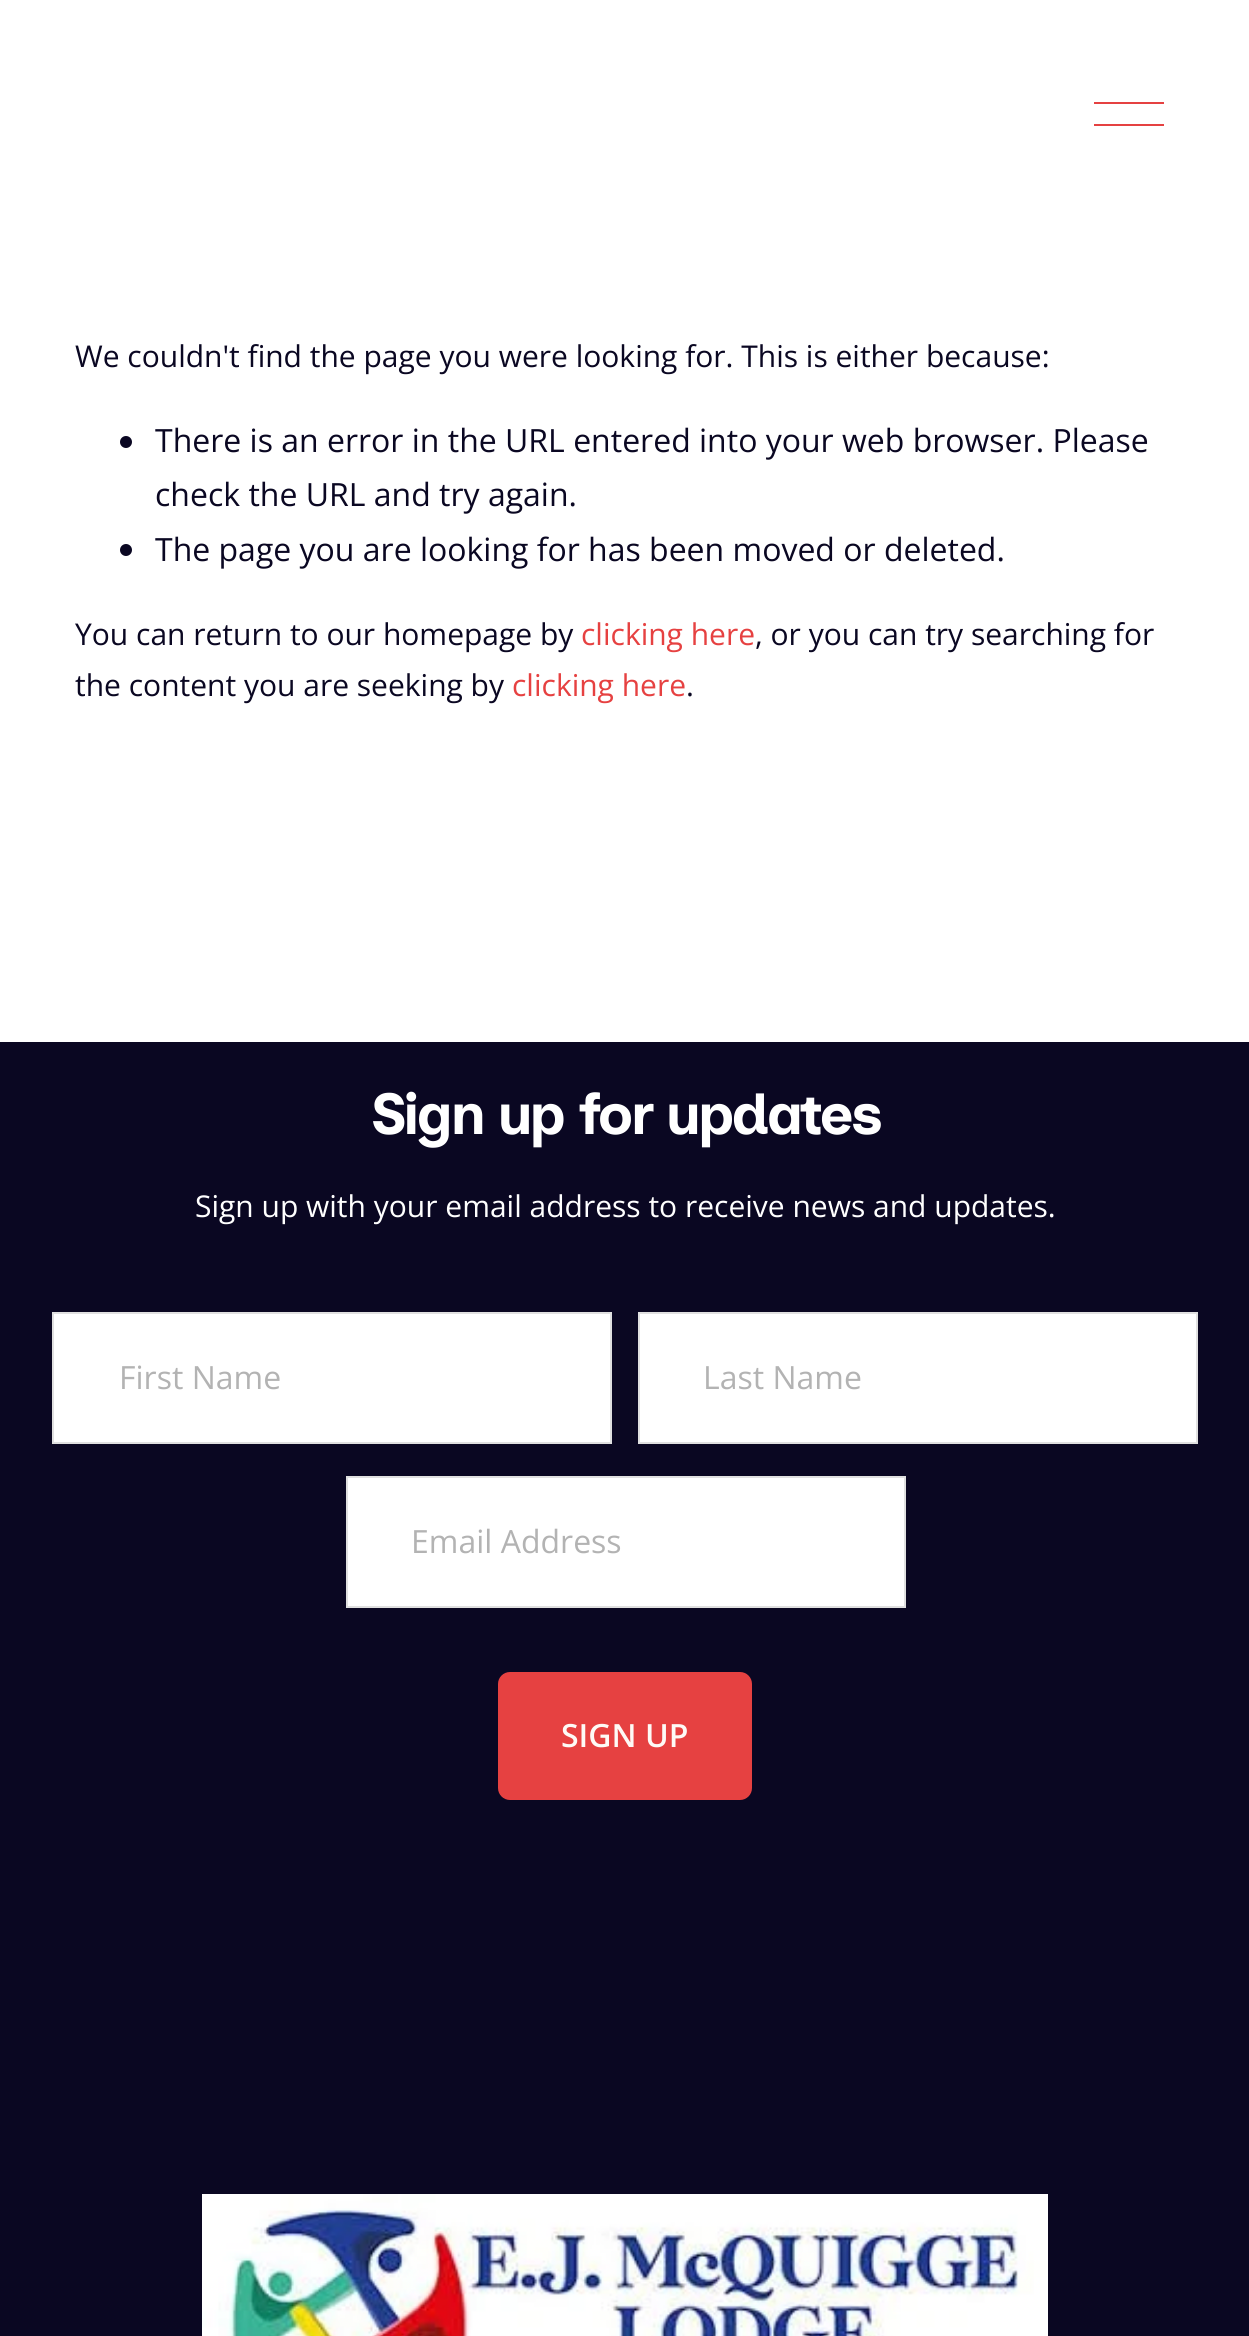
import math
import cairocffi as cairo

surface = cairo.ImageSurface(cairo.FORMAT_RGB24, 1249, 2336)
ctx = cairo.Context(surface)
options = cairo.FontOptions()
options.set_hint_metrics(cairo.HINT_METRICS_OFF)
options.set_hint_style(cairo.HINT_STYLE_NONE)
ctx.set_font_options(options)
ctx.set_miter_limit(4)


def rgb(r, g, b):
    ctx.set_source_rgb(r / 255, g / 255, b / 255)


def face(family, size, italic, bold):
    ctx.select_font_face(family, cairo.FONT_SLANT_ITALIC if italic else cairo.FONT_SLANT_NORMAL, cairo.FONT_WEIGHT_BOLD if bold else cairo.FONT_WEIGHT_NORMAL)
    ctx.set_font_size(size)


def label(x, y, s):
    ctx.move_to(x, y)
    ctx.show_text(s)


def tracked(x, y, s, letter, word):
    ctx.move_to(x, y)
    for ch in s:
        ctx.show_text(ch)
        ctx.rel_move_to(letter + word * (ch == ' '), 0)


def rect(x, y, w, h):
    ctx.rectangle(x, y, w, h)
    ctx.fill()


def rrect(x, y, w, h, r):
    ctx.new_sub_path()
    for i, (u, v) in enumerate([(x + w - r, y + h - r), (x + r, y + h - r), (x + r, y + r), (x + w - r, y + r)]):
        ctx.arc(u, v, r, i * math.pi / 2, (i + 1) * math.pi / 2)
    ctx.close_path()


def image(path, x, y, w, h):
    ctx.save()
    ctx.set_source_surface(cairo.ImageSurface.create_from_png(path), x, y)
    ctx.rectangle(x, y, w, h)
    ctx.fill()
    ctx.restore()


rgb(255, 255, 255)
ctx.paint()
rgb(229, 65, 65)
rect(1094, 102, 70, 2)
rect(1094, 124, 70, 2)
face('Open Sans', 30, 0, 0)
rgb(10, 7, 34)
label(75, 367, 'We couldn\'t find the page you were looking for. This is either because:')
ctx.new_path()
ctx.arc(126, 442, 6, 0, 2 * math.pi)
ctx.fill()
face('Open Sans', 32, 0, 0)
label(155, 452, 'There is an error in the URL entered into your web browser. Please')
label(155, 506, 'check the URL and try again.')
ctx.new_path()
ctx.arc(126, 550, 6, 0, 2 * math.pi)
ctx.fill()
label(155, 561, 'The page you are looking for has been moved or deleted.')
face('Open Sans', 30, 0, 0)
label(75, 645, 'You can return to our homepage by')
rgb(230, 65, 65)
label(581, 645, 'clicking here')
rgb(10, 7, 34)
label(755, 645, ', or you can try searching for')
label(75, 696, 'the content you are seeking by')
rgb(230, 65, 65)
label(512, 696, 'clicking here')
rgb(10, 7, 34)
label(686, 696, '.')
rect(0, 1042, 1249, 1294)
image('image0.png', 202, 2194, 846, 142)
face('Inclusive Sans', 58, 0, 1)
rgb(255, 255, 255)
tracked(371, 1134, 'Sign up for updates', -2.9, 0)
face('Open Sans', 30, 0, 0)
label(195, 1217, 'Sign up with your email address to receive news and updates.')
ctx.rectangle(53, 1313, 558, 130)
ctx.fill_preserve()
rgb(224, 224, 224)
ctx.stroke()
face('Open Sans', 32, 0, 0)
rgb(179, 179, 179)
label(119, 1389, 'First Name')
rgb(255, 255, 255)
ctx.rectangle(639, 1313, 558, 130)
ctx.fill_preserve()
rgb(224, 224, 224)
ctx.stroke()
rgb(179, 179, 179)
label(703, 1389, 'Last Name')
rgb(255, 255, 255)
ctx.rectangle(347, 1477, 558, 130)
ctx.fill_preserve()
rgb(224, 224, 224)
ctx.stroke()
rgb(179, 179, 179)
label(411, 1553, 'Email Address')
rgb(230, 65, 65)
rrect(498, 1672, 254, 128, 12)
ctx.fill()
face('Open Sans SemiBold', 32, 0, 0)
rgb(254, 250, 246)
label(561, 1747, 'SIGN UP')
surface.write_to_png('render.png')
